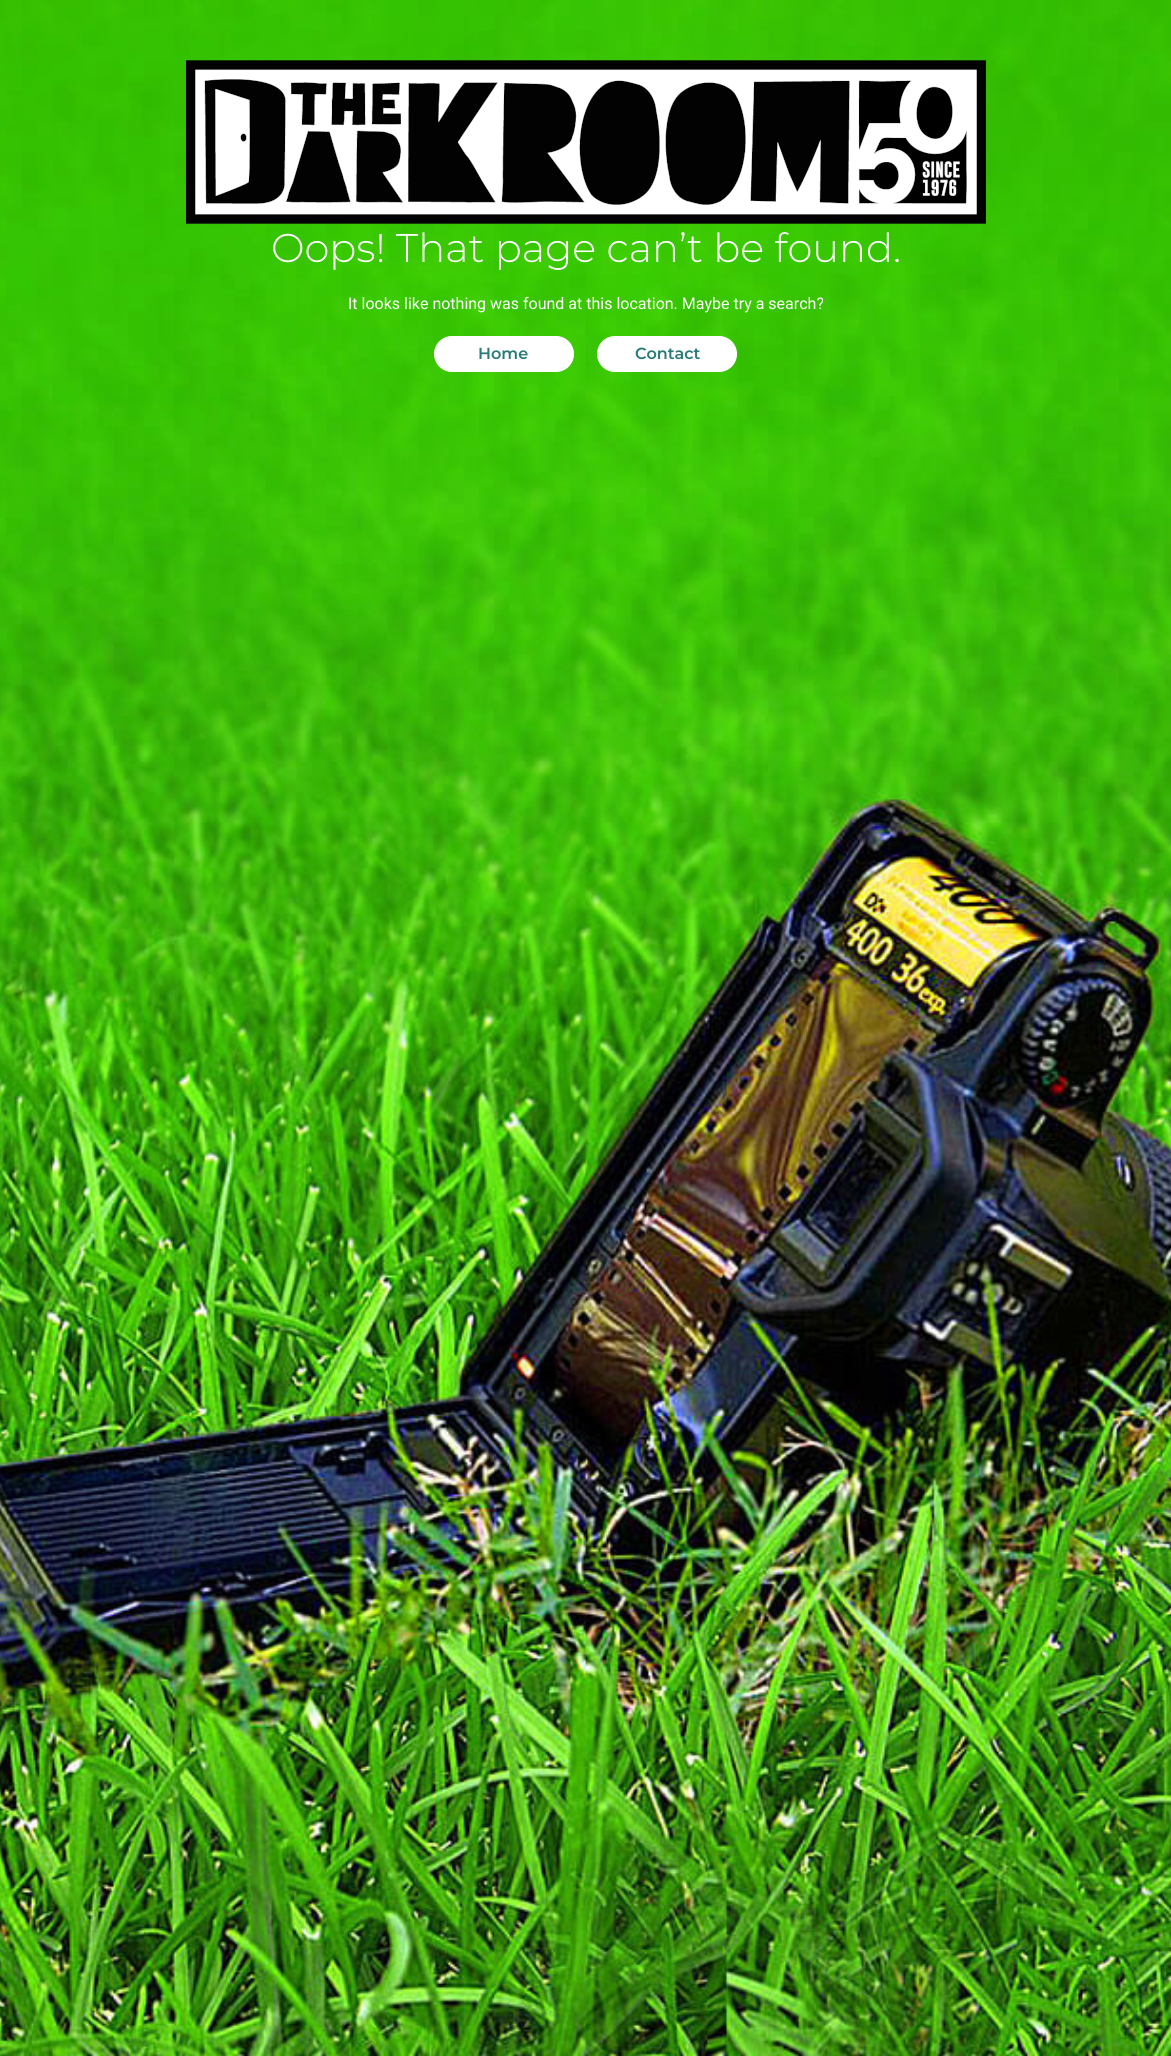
import math
import cairocffi as cairo

surface = cairo.ImageSurface(cairo.FORMAT_RGB24, 1171, 2056)
ctx = cairo.Context(surface)
options = cairo.FontOptions()
options.set_hint_metrics(cairo.HINT_METRICS_OFF)
options.set_hint_style(cairo.HINT_STYLE_NONE)
ctx.set_font_options(options)
ctx.set_miter_limit(4)


def rgb(r, g, b):
    ctx.set_source_rgb(r / 255, g / 255, b / 255)


def face(family, size, italic, bold):
    ctx.select_font_face(family, cairo.FONT_SLANT_ITALIC if italic else cairo.FONT_SLANT_NORMAL, cairo.FONT_WEIGHT_BOLD if bold else cairo.FONT_WEIGHT_NORMAL)
    ctx.set_font_size(size)


def label(x, y, s):
    ctx.move_to(x, y)
    ctx.show_text(s)


def rrect(x, y, w, h, r):
    ctx.new_sub_path()
    for i, (u, v) in enumerate([(x + w - r, y + h - r), (x + r, y + h - r), (x + r, y + r), (x + w - r, y + r)]):
        ctx.arc(u, v, r, i * math.pi / 2, (i + 1) * math.pi / 2)
    ctx.close_path()


def image(path, x, y, w, h):
    ctx.save()
    ctx.set_source_surface(cairo.ImageSurface.create_from_png(path), x, y)
    ctx.rectangle(x, y, w, h)
    ctx.fill()
    ctx.restore()


rgb(255, 255, 255)
ctx.paint()
image('image0.png', 0, 0, 1171, 2056)
image('image1.png', 186, 60, 800, 164)
face('Montserrat Light', 40, 0, 0)
rgb(255, 255, 255)
label(271, 262, 'Oops! That page can’t be found.')
face('Roboto', 16, 0, 0)
label(348, 309, 'It looks like nothing was found at this location. Maybe try a search?')
rrect(434.5, 336.5, 139, 35, 17.5)
ctx.fill_preserve()
ctx.set_line_width(1)
ctx.stroke()
face('Montserrat SemiBold', 16, 0, 0)
rgb(40, 123, 119)
label(478, 359, 'Home')
rgb(255, 255, 255)
rrect(597.5, 336.5, 139, 35, 17.5)
ctx.fill_preserve()
ctx.stroke()
rgb(40, 123, 119)
label(635, 359, 'Contact')
surface.write_to_png('render.png')
